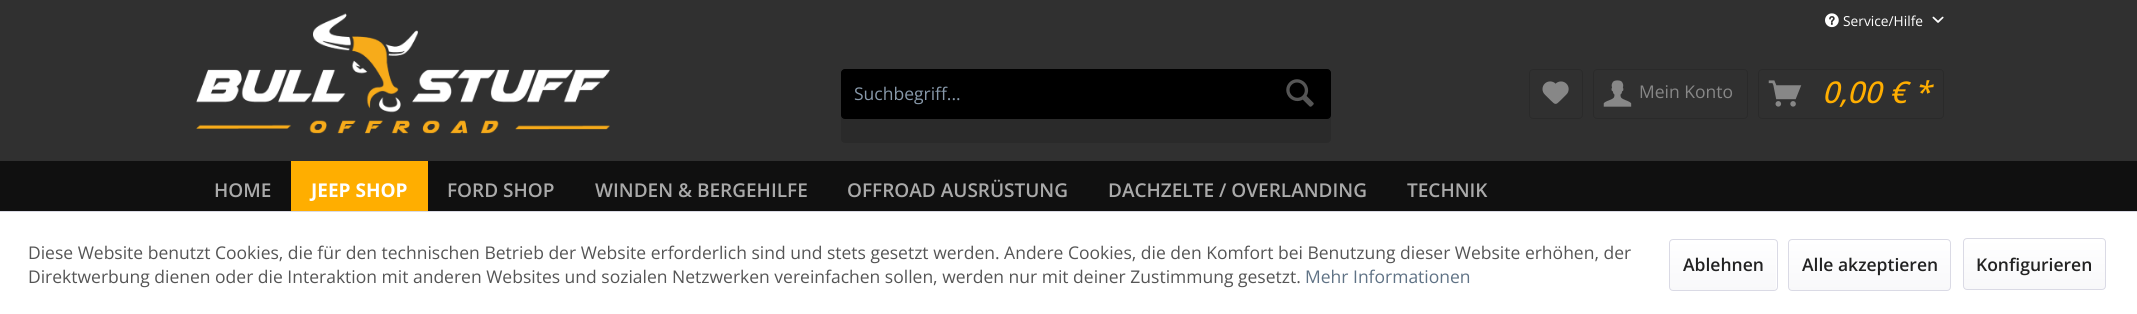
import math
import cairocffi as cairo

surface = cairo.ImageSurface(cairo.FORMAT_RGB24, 2137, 314)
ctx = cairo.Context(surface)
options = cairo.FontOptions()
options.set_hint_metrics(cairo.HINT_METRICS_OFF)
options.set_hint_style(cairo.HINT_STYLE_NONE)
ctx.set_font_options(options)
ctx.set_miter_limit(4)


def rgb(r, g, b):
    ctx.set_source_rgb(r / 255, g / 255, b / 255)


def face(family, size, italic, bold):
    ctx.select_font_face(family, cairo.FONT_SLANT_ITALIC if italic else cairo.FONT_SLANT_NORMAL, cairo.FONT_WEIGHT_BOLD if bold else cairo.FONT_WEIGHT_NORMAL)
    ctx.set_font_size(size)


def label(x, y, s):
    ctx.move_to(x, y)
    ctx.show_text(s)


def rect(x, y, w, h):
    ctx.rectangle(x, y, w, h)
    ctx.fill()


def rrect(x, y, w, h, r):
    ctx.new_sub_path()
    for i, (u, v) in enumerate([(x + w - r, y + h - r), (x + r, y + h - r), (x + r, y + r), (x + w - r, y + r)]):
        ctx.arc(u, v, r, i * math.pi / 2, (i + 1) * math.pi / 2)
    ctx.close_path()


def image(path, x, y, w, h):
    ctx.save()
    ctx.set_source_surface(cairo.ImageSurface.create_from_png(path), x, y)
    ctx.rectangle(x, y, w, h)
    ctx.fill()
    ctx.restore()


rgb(48, 48, 48)
ctx.paint()
image('image0.png', 1825, 13, 14, 15)
face('Open Sans', 13.75, 0, 0)
rgb(255, 255, 255)
label(1843, 26, 'Service/Hilfe')
image('image1.png', 1932, 16, 12, 7)
image('image2.png', 196, 13, 414, 121)
rgb(42, 42, 42)
rrect(841, 69, 490, 74, 4)
ctx.fill()
rgb(0, 0, 0)
rrect(841.5, 69.5, 489, 49, 3.5)
ctx.fill_preserve()
ctx.set_line_width(1)
ctx.stroke()
face('Open Sans', 17.5, 0, 0)
rgb(135, 152, 169)
label(854, 100, 'Suchbegriff...')
image('image3.png', 1286, 79, 28, 28)
rrect(1529.5, 69.5, 53, 49, 3.5)
rgb(42, 42, 42)
ctx.stroke()
image('image4.png', 1542, 81, 27, 23)
rrect(1593.5, 69.5, 154, 49, 3.5)
ctx.stroke()
image('image5.png', 1603, 80, 29, 27)
rgb(135, 135, 135)
label(1639, 98, 'Mein Konto')
rrect(1758.5, 69.5, 185, 49, 3.5)
rgb(42, 42, 42)
ctx.stroke()
image('image6.png', 1768, 80, 34, 27)
face('Open Sans Medium', 30, 1, 0)
rgb(255, 174, 0)
label(1822, 103, '0,00 € *')
rgb(16, 16, 16)
rect(0, 161, 2137, 50)
face('Open Sans SemiBold', 19, 0, 0)
rgb(170, 170, 170)
label(214, 197, 'HOME')
rgb(255, 174, 0)
rect(291, 161, 137, 50)
face('Open Sans', 19, 0, 1)
rgb(255, 255, 255)
label(311, 197, 'JEEP SHOP')
face('Open Sans SemiBold', 19, 0, 0)
rgb(170, 170, 170)
label(447, 197, 'FORD SHOP')
label(595, 197, 'WINDEN & BERGEHILFE')
label(847, 197, 'OFFROAD AUSRÜSTUNG')
label(1108, 197, 'DACHZELTE / OVERLANDING')
label(1407, 197, 'TECHNIK')
rgb(255, 255, 255)
rect(0, 212, 2137, 102)
rgb(218, 218, 229)
rect(0, 211, 2137, 1)
face('Open Sans', 17.5, 0, 0)
rgb(85, 85, 85)
label(28, 259, 'Diese Website benutzt Cookies, die für den technischen Betrieb der Website erforderlich sind und stets gesetzt werden. Andere Cookies, die den Komfort bei Benutzung dieser Website erhöhen, der')
label(28, 283, 'Direktwerbung dienen oder die Interaktion mit anderen Websites und sozialen Netzwerken vereinfachen sollen, werden nur mit deiner Zustimmung gesetzt.')
rgb(95, 114, 133)
label(1305, 283, 'Mehr Informationen')
gradient = cairo.LinearGradient(1723, 240, 1723, 290)
gradient.add_color_stop_rgba(0, 1, 1, 1, 1)
gradient.add_color_stop_rgba(1, 0.973, 0.973, 0.98, 1)
ctx.set_source(gradient)
rrect(1670, 240, 106, 50, 2.5)
ctx.fill()
rrect(1669.5, 239.5, 108, 51, 3.5)
rgb(218, 218, 229)
ctx.stroke()
face('Open Sans SemiBold', 17.5, 0, 0)
rgb(34, 34, 34)
label(1683, 271, 'Ablehnen')
gradient = cairo.LinearGradient(1869, 240, 1869, 290)
gradient.add_color_stop_rgba(0, 1, 1, 1, 1)
gradient.add_color_stop_rgba(1, 0.973, 0.973, 0.98, 1)
ctx.set_source(gradient)
rrect(1789, 240, 161, 50, 2.5)
ctx.fill()
rrect(1788.5, 239.5, 162, 51, 3.5)
rgb(218, 218, 229)
ctx.stroke()
rgb(34, 34, 34)
label(1802, 271, 'Alle akzeptieren')
gradient = cairo.LinearGradient(2034, 239, 2034, 289)
gradient.add_color_stop_rgba(0, 1, 1, 1, 1)
gradient.add_color_stop_rgba(1, 0.973, 0.973, 0.98, 1)
ctx.set_source(gradient)
rrect(1964, 239, 141, 50, 2.5)
ctx.fill()
rrect(1963.5, 238.5, 142, 51, 3.5)
rgb(218, 218, 229)
ctx.stroke()
rgb(34, 34, 34)
label(1976, 271, 'Konfigurieren')
surface.write_to_png('render.png')
